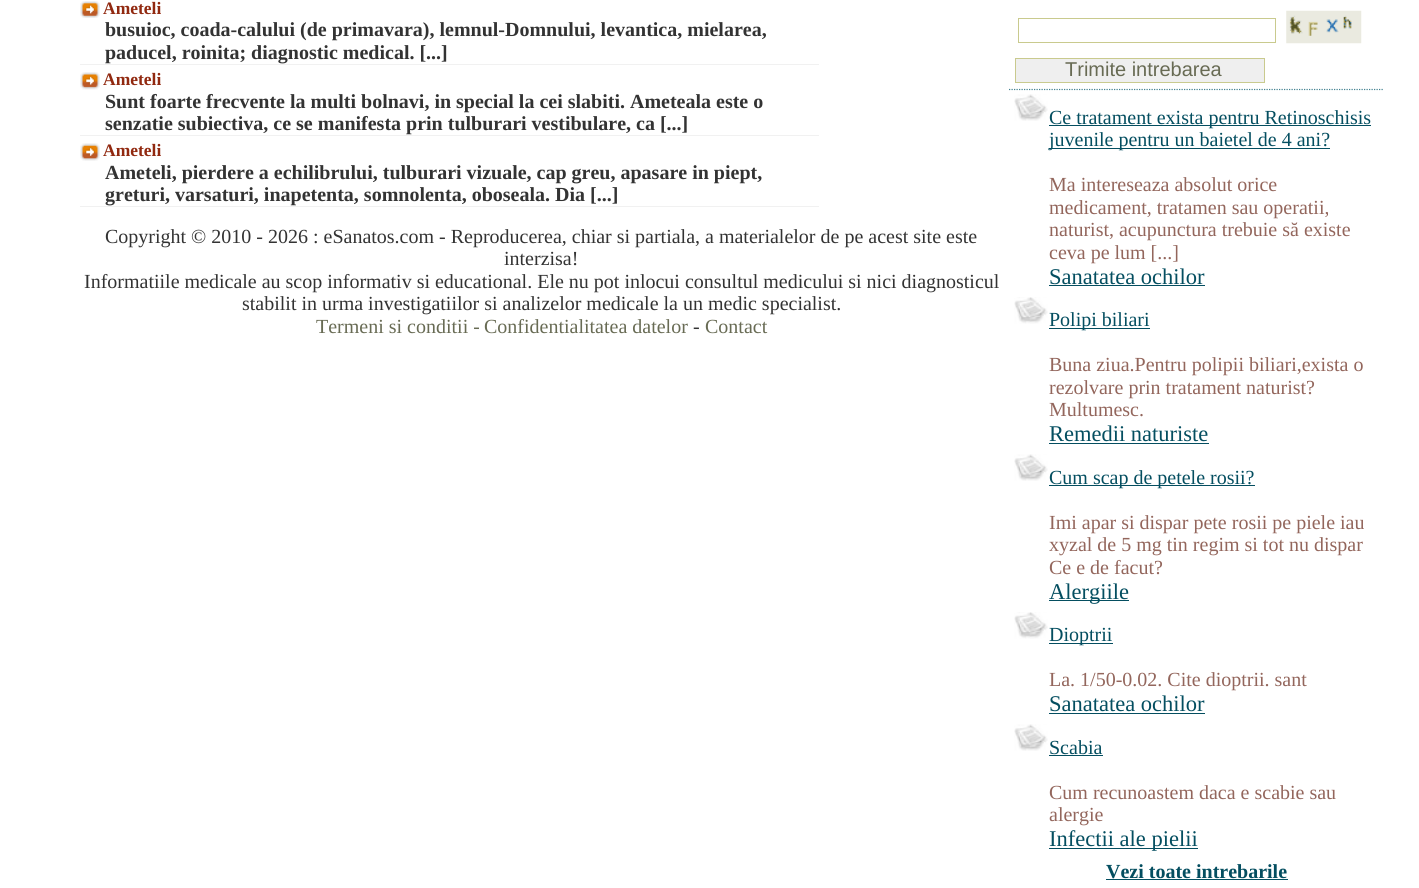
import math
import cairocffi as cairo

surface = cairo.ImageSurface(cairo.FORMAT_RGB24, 1419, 888)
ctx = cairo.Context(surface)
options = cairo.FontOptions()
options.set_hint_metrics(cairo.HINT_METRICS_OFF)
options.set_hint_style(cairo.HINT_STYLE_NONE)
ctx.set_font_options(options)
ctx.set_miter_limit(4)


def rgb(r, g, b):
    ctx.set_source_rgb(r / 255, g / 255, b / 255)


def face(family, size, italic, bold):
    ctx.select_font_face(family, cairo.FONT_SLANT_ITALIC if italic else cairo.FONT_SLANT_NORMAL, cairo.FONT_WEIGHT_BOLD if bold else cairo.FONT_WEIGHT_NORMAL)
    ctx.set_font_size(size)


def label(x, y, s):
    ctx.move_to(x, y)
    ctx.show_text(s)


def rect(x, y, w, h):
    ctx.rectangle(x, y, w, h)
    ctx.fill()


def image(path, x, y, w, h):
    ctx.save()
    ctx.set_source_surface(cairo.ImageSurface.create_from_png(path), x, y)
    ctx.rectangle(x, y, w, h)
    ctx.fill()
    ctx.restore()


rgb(255, 255, 255)
ctx.paint()
rgb(241, 241, 241)
rect(80, 64, 739, 1)
image('image0.png', 80, 1, 20, 17)
face('Liberation Serif', 17.5, 0, 1)
rgb(145, 41, 16)
label(103, 14, 'Ameteli')
face('Liberation Serif', 20, 0, 1)
rgb(51, 51, 51)
label(105, 36, 'busuioc, coada-calului (de primavara), lemnul-Domnului, levantica, mielarea,')
label(105, 59, 'paducel, roinita; diagnostic medical. [...]')
rgb(241, 241, 241)
rect(80, 135, 739, 1)
image('image1.png', 80, 72, 20, 18)
face('Liberation Serif', 17.5, 0, 1)
rgb(145, 41, 16)
label(103, 85, 'Ameteli')
face('Liberation Serif', 20, 0, 1)
rgb(51, 51, 51)
label(105, 108, 'Sunt foarte frecvente la multi bolnavi, in special la cei slabiti. Ameteala este o')
label(105, 130, 'senzatie subiectiva, ce se manifesta prin tulburari vestibulare, ca [...]')
rgb(241, 241, 241)
rect(80, 206, 739, 1)
image('image2.png', 80, 143, 20, 18)
face('Liberation Serif', 17.5, 0, 1)
rgb(145, 41, 16)
label(103, 156, 'Ameteli')
face('Liberation Serif', 20, 0, 1)
rgb(51, 51, 51)
label(105, 179, 'Ameteli, pierdere a echilibrului, tulburari vizuale, cap greu, apasare in piept,')
label(105, 201, 'greturi, varsaturi, inapetenta, somnolenta, oboseala. Dia [...]')
face('Liberation Serif', 20, 0, 0)
label(105, 243, 'Copyright © 2010 - 2026 : eSanatos.com - Reproducerea, chiar si partiala, a materialelor de pe acest site este')
label(504, 265, 'interzisa!')
label(84, 288, 'Informatiile medicale au scop informativ si educational. Ele nu pot inlocui consultul medicului si nici diagnosticul')
label(242, 310, 'stabilit in urma investigatiilor si analizelor medicale la un medic specialist.')
rgb(104, 107, 84)
label(316, 333, 'Termeni si conditii -')
label(484, 333, 'Confidentialitatea datelor')
rgb(51, 51, 51)
label(693, 333, '-')
rgb(104, 107, 84)
label(705, 333, 'Contact')
ctx.rectangle(1018.5, 18.5, 257, 24)
rgb(201, 202, 142)
ctx.set_line_width(1)
ctx.stroke()
image('image3.png', 1286, 10, 76, 34)
ctx.new_path()
ctx.move_to(1009, 89.5)
ctx.line_to(1384, 89.5)
rgb(68, 130, 145)
ctx.set_line_width(1.2)
ctx.set_dash([1.25, 1.25])
ctx.stroke()
rgb(239, 239, 239)
ctx.rectangle(1015.5, 58.5, 249, 24)
ctx.fill_preserve()
rgb(201, 202, 142)
ctx.set_line_width(1)
ctx.set_dash([])
ctx.stroke()
face('Liberation Sans', 20, 0, 0)
rgb(104, 107, 84)
label(1065, 76, 'Trimite intrebarea')
image('image4.png', 1014, 94, 34, 27)
rgb(4, 78, 96)
rect(1049, 125, 322, 1)
face('Liberation Serif', 20, 0, 0)
label(1049, 124, 'Ce tratament exista pentru Retinoschisis')
rect(1049, 148, 281, 1)
label(1049, 146, 'juvenile pentru un baietel de 4 ani?')
rgb(147, 102, 92)
label(1049, 191, 'Ma intereseaza absolut orice')
label(1049, 214, 'medicament, tratamen sau operatii,')
label(1049, 236, 'naturist, acupunctura trebuie să existe')
label(1049, 259, 'ceva pe lum [...]')
face('Liberation Serif', 22.5, 0, 0)
rgb(4, 78, 96)
label(1049, 284, 'Sanatatea ochilor')
rect(1049, 285, 156, 1)
image('image5.png', 1014, 297, 34, 27)
rect(1049, 328, 101, 1)
face('Liberation Serif', 20, 0, 0)
label(1049, 326, 'Polipi biliari')
rgb(147, 102, 92)
label(1049, 371, 'Buna ziua.Pentru polipii biliari,exista o')
label(1049, 394, 'rezolvare prin tratament naturist?')
label(1049, 416, 'Multumesc.')
face('Liberation Serif', 22.5, 0, 0)
rgb(4, 78, 96)
label(1049, 441, 'Remedii naturiste')
rect(1049, 443, 160, 1)
image('image4.png', 1014, 454, 34, 27)
rect(1049, 485, 206, 1)
face('Liberation Serif', 20, 0, 0)
label(1049, 484, 'Cum scap de petele rosii?')
rgb(147, 102, 92)
label(1049, 529, 'Imi apar si dispar pete rosii pe piele iau')
label(1049, 551, 'xyzal de 5 mg tin regim si tot nu dispar')
label(1049, 574, 'Ce e de facut?')
rgb(4, 78, 96)
rect(1049, 600, 80, 1)
face('Liberation Serif', 22.5, 0, 0)
label(1049, 599, 'Alergiile')
image('image5.png', 1014, 612, 34, 27)
rect(1049, 643, 64, 1)
face('Liberation Serif', 20, 0, 0)
label(1049, 641, 'Dioptrii')
rgb(147, 102, 92)
label(1049, 686, 'La. 1/50-0.02. Cite dioptrii. sant')
face('Liberation Serif', 22.5, 0, 0)
rgb(4, 78, 96)
label(1049, 711, 'Sanatatea ochilor')
rect(1049, 713, 156, 1)
image('image4.png', 1014, 724, 34, 27)
face('Liberation Serif', 20, 0, 0)
label(1049, 754, 'Scabia')
rect(1049, 755, 54, 1)
rgb(147, 102, 92)
label(1049, 799, 'Cum recunoastem daca e scabie sau')
label(1049, 821, 'alergie')
rgb(4, 78, 96)
rect(1049, 848, 149, 1)
face('Liberation Serif', 22.5, 0, 0)
label(1049, 846, 'Infectii ale pielii')
face('Liberation Serif', 20, 0, 1)
label(1106, 878, 'Vezi toate intrebarile')
rect(1106, 879, 182, 1)
surface.write_to_png('render.png')
